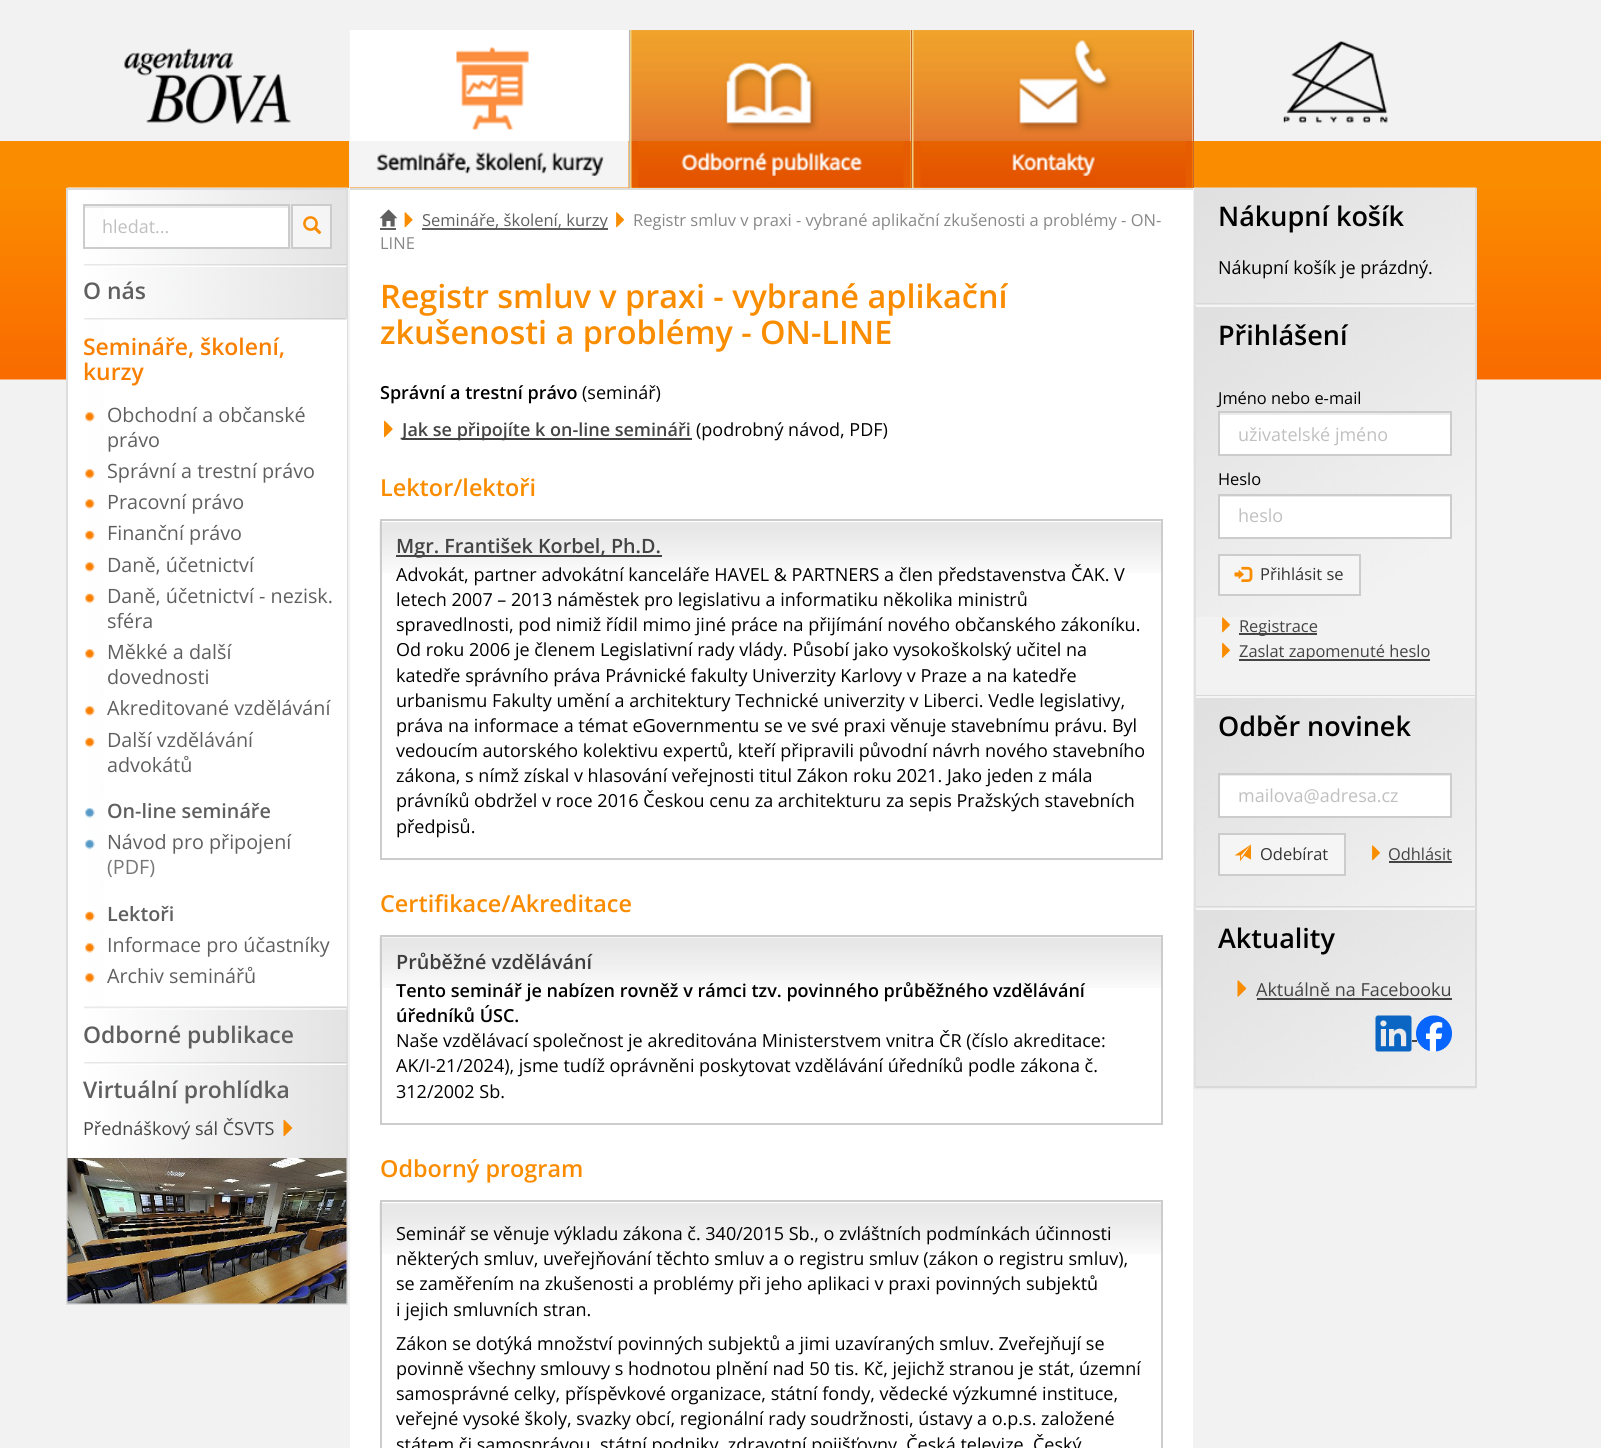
import math
import cairocffi as cairo

surface = cairo.ImageSurface(cairo.FORMAT_RGB24, 1601, 1448)
ctx = cairo.Context(surface)
options = cairo.FontOptions()
options.set_hint_metrics(cairo.HINT_METRICS_OFF)
options.set_hint_style(cairo.HINT_STYLE_NONE)
ctx.set_font_options(options)
ctx.set_miter_limit(4)


def rgb(r, g, b):
    ctx.set_source_rgb(r / 255, g / 255, b / 255)


def face(family, size, italic, bold):
    ctx.select_font_face(family, cairo.FONT_SLANT_ITALIC if italic else cairo.FONT_SLANT_NORMAL, cairo.FONT_WEIGHT_BOLD if bold else cairo.FONT_WEIGHT_NORMAL)
    ctx.set_font_size(size)


def label(x, y, s):
    ctx.move_to(x, y)
    ctx.show_text(s)


def rect(x, y, w, h):
    ctx.rectangle(x, y, w, h)
    ctx.fill()


def rrect(x, y, w, h, r):
    ctx.new_sub_path()
    for i, (u, v) in enumerate([(x + w - r, y + h - r), (x + r, y + h - r), (x + r, y + r), (x + w - r, y + r)]):
        ctx.arc(u, v, r, i * math.pi / 2, (i + 1) * math.pi / 2)
    ctx.close_path()


def soft_shadow(x, y, w, h, r, blur, alpha):
    ctx.push_group_with_content(cairo.CONTENT_ALPHA)
    ctx.set_operator(cairo.OPERATOR_SOURCE)
    for i in range(15, -16, -2):
        e = blur * i / 6
        if min(w, h) + 2 * e > 0:
            ctx.set_source_rgba(0, 0, 0, alpha * math.erfc((i - 1) / 8.5) / 2)
            rrect(x - e, y - e, w + 2 * e, h + 2 * e, max(0, min(r + e + blur * .6, min(w, h) / 2 + e)))
            ctx.fill()
    ctx.mask(ctx.pop_group())


def image(path, x, y, w, h):
    ctx.save()
    ctx.set_source_surface(cairo.ImageSurface.create_from_png(path), x, y)
    ctx.rectangle(x, y, w, h)
    ctx.fill()
    ctx.restore()


rgb(242, 242, 242)
ctx.paint()
image('image0.png', 124, 48, 167, 76)
rgb(250, 140, 0)
rect(0, 141, 1601, 47)
rgb(184, 184, 184)
rect(629, 30, 1, 158)
rgb(232, 232, 232)
rect(349, 30, 1, 158)
image('image1.png', 349, 30, 280, 111)
rgb(200, 104, 40)
rect(911, 30, 1, 158)
rgb(240, 208, 128)
rect(630, 30, 2, 158)
image('image2.png', 631, 30, 280, 111)
rgb(200, 104, 40)
rect(1193, 30, 1, 158)
rgb(240, 208, 128)
rect(912, 30, 2, 158)
image('image3.png', 913, 30, 280, 111)
image('image4.png', 1283, 41, 105, 82)
image('image5.png', 349, 141, 280, 47)
image('image6.png', 631, 141, 280, 47)
image('image7.png', 913, 141, 280, 47)
image('image8.png', 0, 188, 1601, 192)
image('image9.png', 67, 187, 281, 971)
ctx.rectangle(67, 189, 280, 1115)
rgb(221, 221, 221)
ctx.stroke()
rgb(255, 255, 255)
rect(104, 208, 184, 39)
rgb(236, 236, 236)
rect(84, 206, 204, 2)
ctx.rectangle(84, 205, 205, 43)
rgb(204, 204, 204)
ctx.stroke()
face('Open Sans', 18, 0, 0)
rgb(192, 192, 192)
label(102, 233, 'hledat...')
rgb(245, 245, 245)
ctx.rectangle(292, 205, 39, 43)
ctx.fill_preserve()
rgb(204, 204, 204)
ctx.stroke()
image('image10.png', 303, 216, 19, 19)
image('image11.png', 84, 264, 263, 3)
face('Open Sans SemiBold', 22.9, 0, 0)
rgb(95, 95, 95)
label(83, 299, 'O nás')
rgb(255, 255, 255)
rect(104, 318, 243, 689)
image('image12.png', 84, 318, 263, 2)
rgb(249, 127, 0)
label(83, 355, 'Semináře, školení,')
label(83, 380, 'kurzy')
image('image13.png', 85, 412, 10, 10)
face('Open Sans', 19.75, 0, 0)
rgb(95, 95, 95)
label(107, 422, 'Obchodní a občanské')
label(107, 447, 'právo')
image('image13.png', 85, 469, 10, 10)
label(107, 478, 'Správní a trestní právo')
image('image13.png', 85, 499, 10, 10)
label(107, 509, 'Pracovní právo')
image('image14.png', 85, 530, 10, 11)
label(107, 540, 'Finanční právo')
image('image13.png', 85, 562, 10, 10)
label(107, 572, 'Daně, účetnictví')
image('image14.png', 85, 593, 10, 11)
label(107, 603, 'Daně, účetnictví - nezisk.')
label(107, 628, 'sféra')
image('image13.png', 85, 649, 10, 10)
label(107, 659, 'Měkké a další')
label(107, 684, 'dovednosti')
image('image13.png', 85, 706, 10, 10)
label(107, 715, 'Akreditované vzdělávání')
image('image14.png', 85, 737, 10, 11)
label(107, 747, 'Další vzdělávání')
label(107, 772, 'advokátů')
image('image15.png', 85, 808, 10, 10)
face('Open Sans SemiBold', 19.75, 0, 0)
label(107, 818, 'On-line semináře')
image('image16.png', 85, 839, 10, 11)
face('Open Sans', 19.75, 0, 0)
label(107, 849, 'Návod pro připojení')
rgb(119, 119, 119)
label(107, 874, '(PDF)')
image('image14.png', 85, 911, 10, 11)
face('Open Sans SemiBold', 19.75, 0, 0)
rgb(95, 95, 95)
label(107, 921, 'Lektoři')
image('image13.png', 85, 943, 10, 10)
face('Open Sans', 19.75, 0, 0)
label(107, 952, 'Informace pro účastníky')
image('image13.png', 85, 973, 10, 10)
label(107, 983, 'Archiv seminářů')
image('image17.png', 84, 1006, 263, 4)
face('Open Sans SemiBold', 22.9, 0, 0)
label(83, 1043, 'Odborné publikace')
image('image11.png', 84, 1062, 263, 3)
label(83, 1098, 'Virtuální prohlídka')
face('Open Sans', 18, 0, 0)
rgb(68, 68, 68)
label(83, 1135, 'Přednáškový sál ČSVTS')
image('image18.png', 283, 1119, 10, 18)
image('image19.png', 67, 1158, 280, 146)
rgb(255, 255, 255)
rect(350, 190, 843, 1258)
rgb(221, 221, 221)
rect(348, 188, 846, 2)
rgb(240, 240, 240)
rect(1193, 188, 2, 192)
rgb(244, 244, 244)
rect(348, 188, 2, 192)
image('image20.png', 379, 209, 19, 18)
image('image21.png', 404, 212, 9, 16)
rgb(95, 95, 95)
rect(422, 228, 186, 2)
face('Open Sans', 16.5, 0, 0)
label(422, 226, 'Semináře, školení, kurzy')
image('image22.png', 616, 212, 8, 16)
rgb(136, 136, 136)
label(633, 226, 'Registr smluv v praxi - vybrané aplikační zkušenosti a problémy - ON-')
rgb(95, 95, 95)
rect(380, 228, 16, 2)
rgb(136, 136, 136)
label(380, 249, 'LINE')
face('Open Sans SemiBold', 32.4, 0, 0)
rgb(250, 140, 0)
label(380, 308, 'Registr smluv v praxi - vybrané aplikační')
label(380, 344, 'zkušenosti a problémy - ON-LINE')
face('Open Sans SemiBold', 18, 0, 0)
rgb(0, 0, 0)
label(380, 399, 'Správní a trestní právo')
face('Open Sans', 18, 0, 0)
label(582, 399, '(seminář)')
image('image23.png', 384, 420, 9, 18)
rgb(68, 68, 68)
rect(402, 438, 290, 2)
face('Open Sans SemiBold', 18, 0, 0)
label(402, 436, 'Jak se připojíte k on-line semináři')
face('Open Sans', 18, 0, 0)
rgb(0, 0, 0)
label(696, 436, '(podrobný návod, PDF)')
face('Open Sans SemiBold', 23.4, 0, 0)
rgb(250, 140, 0)
label(380, 496, 'Lektor/lektoři')
image('image24.png', 379, 522, 782, 51)
ctx.rectangle(381, 520, 781, 339)
rgb(204, 204, 204)
ctx.stroke()
rgb(68, 68, 68)
rect(396, 555, 266, 2)
face('Open Sans SemiBold', 19.75, 0, 0)
label(396, 553, 'Mgr. František Korbel, Ph.D.')
face('Open Sans', 18, 0, 0)
rgb(0, 0, 0)
label(396, 581, 'Advokát, partner advokátní kanceláře HAVEL & PARTNERS a člen představenstva ČAK. V')
label(396, 606, 'letech 2007 – 2013 náměstek pro legislativu a informatiku několika ministrů')
label(396, 631, 'spravedlnosti, pod nimiž řídil mimo jiné práce na přijímání nového občanského zákoníku.')
label(396, 656, 'Od roku 2006 je členem Legislativní rady vlády. Působí jako vysokoškolský učitel na')
label(396, 682, 'katedře správního práva Právnické fakulty Univerzity Karlovy v Praze a na katedře')
label(396, 707, 'urbanismu Fakulty umění a architektury Technické univerzity v Liberci. Vedle legislativy,')
label(396, 732, 'práva na informace a témat eGovernmentu se ve své praxi věnuje stavebnímu právu. Byl')
label(396, 757, 'vedoucím autorského kolektivu expertů, kteří připravili původní návrh nového stavebního')
label(396, 782, 'zákona, s nímž získal v hlasování veřejnosti titul Zákon roku 2021. Jako jeden z mála')
label(396, 807, 'právníků obdržel v roce 2016 Českou cenu za architekturu za sepis Pražských stavebních')
label(396, 833, 'předpisů.')
face('Open Sans SemiBold', 23.4, 0, 0)
rgb(250, 140, 0)
label(380, 912, 'Certifikace/Akreditace')
image('image25.png', 379, 937, 782, 51)
ctx.rectangle(381, 936, 781, 188)
rgb(204, 204, 204)
ctx.stroke()
face('Open Sans SemiBold', 19.75, 0, 0)
rgb(61, 61, 61)
label(396, 969, 'Průběžné vzdělávání')
face('Open Sans SemiBold', 18, 0, 0)
rgb(0, 0, 0)
label(396, 997, 'Tento seminář je nabízen rovněž v rámci tzv. povinného průběžného vzdělávání')
label(396, 1022, 'úředníků ÚSC.')
face('Open Sans', 18, 0, 0)
label(396, 1047, 'Naše vzdělávací společnost je akreditována Ministerstvem vnitra ČR (číslo akreditace:')
label(396, 1072, 'AK/I-21/2024), jsme tudíž oprávněni poskytovat vzdělávání úředníků podle zákona č.')
label(396, 1098, '312/2002 Sb.')
face('Open Sans SemiBold', 23.4, 0, 0)
rgb(250, 140, 0)
label(380, 1177, 'Odborný program')
image('image24.png', 379, 1203, 782, 51)
ctx.rectangle(381, 1201, 781, 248)
rgb(204, 204, 204)
ctx.stroke()
face('Open Sans', 18, 0, 0)
rgb(0, 0, 0)
label(396, 1240, 'Seminář se věnuje výkladu zákona č. 340/2015 Sb., o zvláštních podmínkách účinnosti')
label(396, 1265, 'některých smluv, uveřejňování těchto smluv a o registru smluv (zákon o registru smluv),')
label(396, 1290, 'se zaměřením na zkušenosti a problémy při jeho aplikaci v praxi povinných subjektů')
label(396, 1316, 'i jejich smluvních stran.')
label(396, 1350, 'Zákon se dotýká množství povinných subjektů a jimi uzavíraných smluv. Zveřejňují se')
label(396, 1375, 'povinně všechny smlouvy s hodnotou plnění nad 50 tis. Kč, jejichž stranou je stát, územní')
label(396, 1400, 'samosprávné celky, příspěvkové organizace, státní fondy, vědecké výzkumné instituce,')
label(396, 1425, 'veřejné vysoké školy, svazky obcí, regionální rady soudržnosti, ústavy a o.p.s. založené')
label(396, 1451, 'státem či samosprávou, státní podniky, zdravotní pojišťovny, Česká televize, Český')
image('image26.png', 1194, 187, 282, 116)
rgb(217, 217, 217)
rect(1475, 188, 2, 117)
rect(1194, 303, 282, 2)
rgb(224, 224, 224)
rect(1194, 188, 2, 117)
face('Open Sans SemiBold', 27, 0, 0)
rgb(0, 0, 0)
label(1218, 226, 'Nákupní košík')
face('Open Sans', 18, 0, 0)
label(1218, 274, 'Nákupní košík je prázdný.')
image('image27.png', 1194, 304, 282, 313)
rgb(245, 245, 245)
rect(1194, 305, 282, 2)
rgb(217, 217, 217)
rect(1475, 305, 2, 391)
rect(1194, 695, 282, 1)
rgb(224, 224, 224)
rect(1194, 305, 2, 391)
face('Open Sans SemiBold', 27, 0, 0)
rgb(0, 0, 0)
label(1218, 345, 'Přihlášení')
face('Open Sans', 16.4, 0, 0)
label(1218, 404, 'Jméno nebo e-mail')
rgb(255, 255, 255)
rect(1220, 415, 230, 39)
rgb(236, 236, 236)
rect(1220, 413, 155, 2)
ctx.rectangle(1219, 412, 232, 43)
rgb(204, 204, 204)
ctx.stroke()
face('Open Sans', 18, 0, 0)
rgb(192, 192, 192)
label(1238, 441, 'uživatelské jméno')
face('Open Sans', 16.4, 0, 0)
rgb(0, 0, 0)
label(1218, 485, 'Heslo')
rgb(255, 255, 255)
rect(1220, 497, 230, 40)
rgb(236, 236, 236)
rect(1220, 496, 231, 1)
ctx.rectangle(1219, 495, 232, 43)
rgb(204, 204, 204)
ctx.stroke()
face('Open Sans', 18, 0, 0)
rgb(192, 192, 192)
label(1238, 522, 'heslo')
rgb(245, 245, 245)
ctx.rectangle(1219, 555, 141, 40)
ctx.fill_preserve()
rgb(204, 204, 204)
ctx.stroke()
image('image28.png', 1234, 566, 19, 16)
face('Open Sans', 16.5, 0, 0)
rgb(51, 51, 51)
label(1260, 580, 'Přihlásit se')
image('image29.png', 1222, 617, 8, 16)
rgb(68, 68, 68)
rect(1239, 633, 78, 2)
face('Open Sans', 16.4, 0, 0)
label(1239, 632, 'Registrace')
image('image30.png', 1222, 642, 8, 16)
rect(1239, 659, 191, 2)
label(1239, 657, 'Zaslat zapomenuté heslo')
image('image31.png', 1196, 698, 279, 208)
rgb(245, 245, 245)
rect(1194, 696, 282, 2)
rgb(217, 217, 217)
rect(1475, 696, 2, 212)
rect(1194, 906, 282, 2)
rgb(224, 224, 224)
rect(1194, 696, 2, 212)
face('Open Sans SemiBold', 27, 0, 0)
rgb(0, 0, 0)
label(1218, 736, 'Odběr novinek')
rgb(255, 255, 255)
rect(1220, 776, 230, 40)
rgb(236, 236, 236)
rect(1220, 775, 192, 1)
ctx.rectangle(1219, 774, 232, 43)
rgb(204, 204, 204)
ctx.stroke()
face('Open Sans', 18, 0, 0)
rgb(192, 192, 192)
label(1238, 802, 'mailova@adresa.cz')
rgb(245, 245, 245)
ctx.rectangle(1219, 834, 126, 41)
ctx.fill_preserve()
rgb(204, 204, 204)
ctx.stroke()
image('image32.png', 1234, 844, 17, 18)
face('Open Sans', 16.5, 0, 0)
rgb(51, 51, 51)
label(1260, 860, 'Odebírat')
image('image33.png', 1372, 845, 8, 16)
face('Open Sans', 16.4, 0, 0)
rgb(68, 68, 68)
label(1388, 860, 'Odhlásit')
rect(1389, 861, 63, 2)
rgb(0, 0, 0)
soft_shadow(1194, 909, 282, 180, 0, 1, 0.05)
image('image34.png', 1194, 907, 282, 179)
rgb(245, 245, 245)
rect(1194, 908, 282, 2)
rgb(217, 217, 217)
rect(1475, 908, 2, 180)
rect(1194, 1086, 282, 2)
rgb(224, 224, 224)
rect(1194, 908, 2, 180)
face('Open Sans SemiBold', 27, 0, 0)
rgb(0, 0, 0)
label(1218, 948, 'Aktuality')
image('image35.png', 1237, 980, 10, 17)
face('Open Sans', 18, 0, 0)
rgb(68, 68, 68)
label(1256, 996, 'Aktuálně na Facebooku')
rect(1257, 998, 195, 2)
image('image36.png', 1375, 1015, 37, 37)
rect(1412, 1040, 5, 2)
image('image37.png', 1416, 1015, 36, 37)
surface.write_to_png('render.png')
